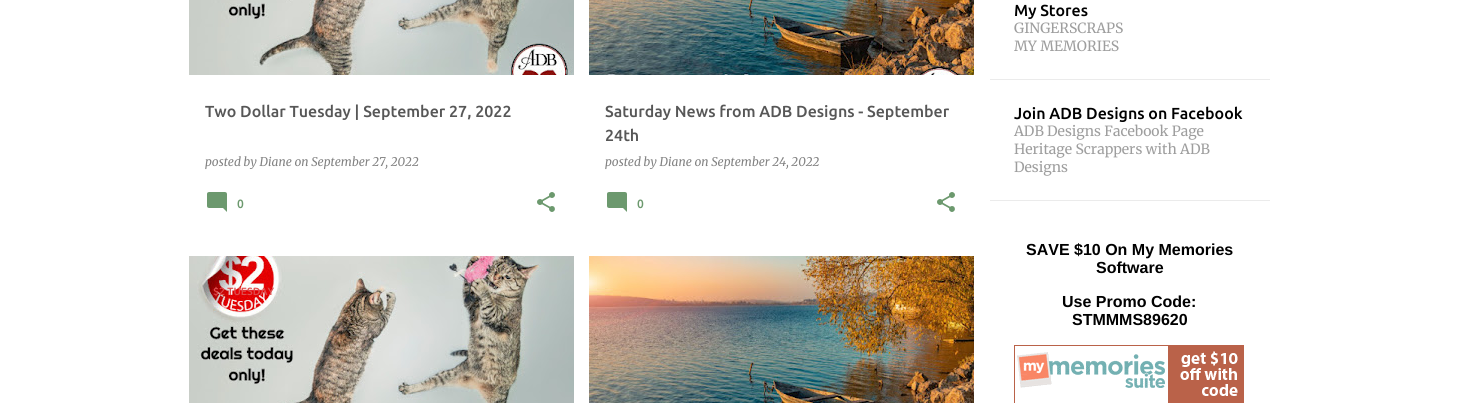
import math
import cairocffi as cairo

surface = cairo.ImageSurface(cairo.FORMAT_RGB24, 1458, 403)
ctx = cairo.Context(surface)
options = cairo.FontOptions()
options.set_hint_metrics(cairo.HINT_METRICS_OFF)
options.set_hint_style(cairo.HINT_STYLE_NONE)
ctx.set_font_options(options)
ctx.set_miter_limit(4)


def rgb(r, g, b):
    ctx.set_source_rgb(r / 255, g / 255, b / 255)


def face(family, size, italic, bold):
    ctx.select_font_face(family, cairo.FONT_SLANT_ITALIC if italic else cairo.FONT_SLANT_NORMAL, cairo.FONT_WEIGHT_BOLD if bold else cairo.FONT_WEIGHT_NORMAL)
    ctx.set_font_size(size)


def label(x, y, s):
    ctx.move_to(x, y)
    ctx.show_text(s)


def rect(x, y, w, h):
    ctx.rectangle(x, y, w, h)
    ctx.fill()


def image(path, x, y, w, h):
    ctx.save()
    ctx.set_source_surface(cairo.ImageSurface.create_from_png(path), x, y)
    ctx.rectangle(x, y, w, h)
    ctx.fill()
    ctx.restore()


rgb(255, 255, 255)
ctx.paint()
image('image0.png', 189, 0, 385, 75)
face('Ubuntu Medium', 16, 0, 0)
rgb(87, 87, 87)
label(205, 117, 'Two Dollar Tuesday | September 27, 2022')
face('Merriweather', 12, 1, 0)
rgb(130, 130, 130)
label(205, 166, 'posted by Diane on September 27, 2022')
image('image1.png', 207, 192, 20, 20)
face('Ubuntu Medium', 12, 0, 0)
rgb(108, 153, 110)
label(237, 208, '0')
image('image2.png', 537, 192, 18, 20)
image('image3.png', 589, 0, 385, 75)
face('Ubuntu Medium', 16, 0, 0)
rgb(87, 87, 87)
label(605, 117, 'Saturday News from ADB Designs - September')
label(605, 141, '24th')
face('Merriweather', 12, 1, 0)
rgb(130, 130, 130)
label(605, 166, 'posted by Diane on September 24, 2022')
image('image1.png', 607, 192, 20, 20)
face('Ubuntu Medium', 12, 0, 0)
rgb(108, 153, 110)
label(637, 208, '0')
image('image2.png', 937, 192, 18, 20)
image('image4.png', 189, 256, 385, 147)
face('Ubuntu Medium', 10.5, 0, 0)
rgb(222, 77, 77)
label(213, 295, '$2 TUESDAY')
image('image5.png', 589, 256, 385, 147)
face('Ubuntu Medium', 16, 0, 0)
rgb(0, 0, 0)
label(1014, 16, 'My Stores')
face('Merriweather Light', 14, 0, 0)
rgb(158, 158, 158)
label(1014, 33, 'GINGERSCRAPS')
label(1014, 51, 'MY MEMORIES')
rgb(235, 235, 235)
rect(990, 79, 280, 1)
face('Ubuntu Medium', 16, 0, 0)
rgb(0, 0, 0)
label(1014, 119, 'Join ADB Designs on Facebook')
face('Merriweather Light', 14, 0, 0)
rgb(158, 158, 158)
label(1014, 136, 'ADB Designs Facebook Page')
label(1014, 154, 'Heritage Scrappers with ADB')
label(1014, 172, 'Designs')
rgb(235, 235, 235)
rect(990, 200, 280, 1)
face('Liberation Sans', 16, 0, 1)
rgb(0, 0, 0)
label(1026, 255, 'SAVE $10 On My Memories')
label(1096, 273, 'Software')
label(1062, 307, 'Use Promo Code:')
label(1072, 325, 'STMMMS89620')
image('image6.png', 1014, 345, 230, 58)
surface.write_to_png('render.png')
